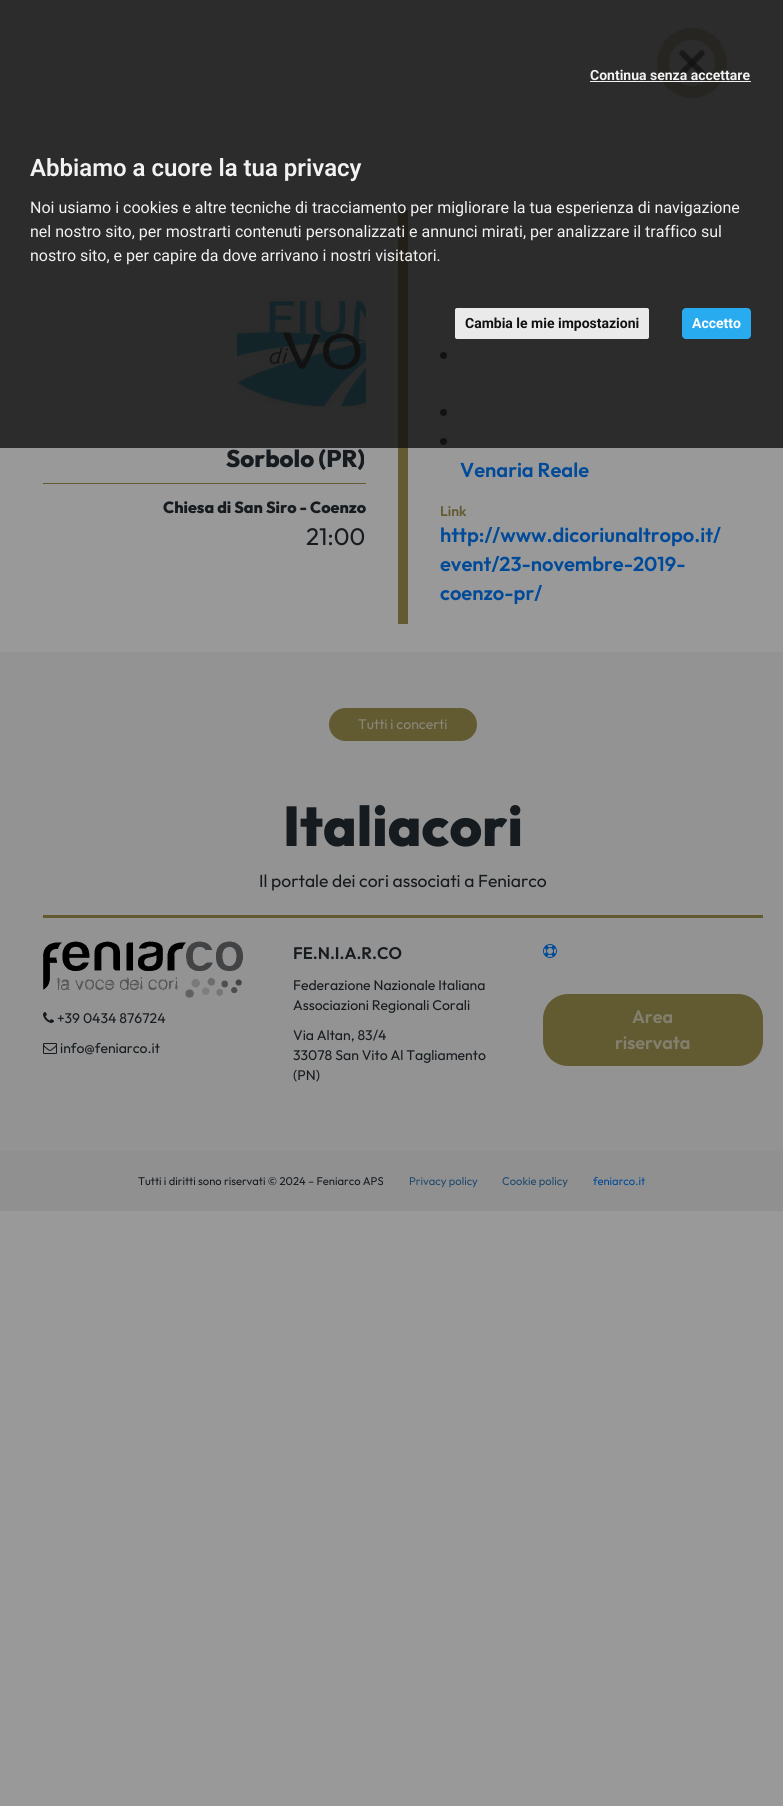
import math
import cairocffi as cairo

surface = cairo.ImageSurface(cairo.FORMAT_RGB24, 783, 1806)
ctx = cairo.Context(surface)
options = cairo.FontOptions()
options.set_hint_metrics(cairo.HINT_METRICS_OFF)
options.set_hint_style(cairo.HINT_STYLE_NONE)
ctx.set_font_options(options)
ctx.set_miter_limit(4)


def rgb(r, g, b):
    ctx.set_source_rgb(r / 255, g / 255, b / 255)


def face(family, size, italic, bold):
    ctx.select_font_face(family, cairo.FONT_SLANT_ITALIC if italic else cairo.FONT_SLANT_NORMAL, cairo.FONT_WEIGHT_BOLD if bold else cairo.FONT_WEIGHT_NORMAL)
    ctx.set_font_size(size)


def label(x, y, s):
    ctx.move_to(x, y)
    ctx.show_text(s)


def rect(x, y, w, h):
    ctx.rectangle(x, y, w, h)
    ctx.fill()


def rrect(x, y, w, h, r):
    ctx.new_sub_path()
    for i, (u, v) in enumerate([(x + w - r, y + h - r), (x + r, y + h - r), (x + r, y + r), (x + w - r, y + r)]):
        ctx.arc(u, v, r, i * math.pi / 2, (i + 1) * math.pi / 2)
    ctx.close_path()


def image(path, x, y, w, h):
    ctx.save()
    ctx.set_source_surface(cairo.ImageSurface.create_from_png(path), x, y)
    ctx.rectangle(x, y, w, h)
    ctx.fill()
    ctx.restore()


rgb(153, 153, 153)
ctx.paint()
image('image0.png', 657, 28, 70, 70)
image('image1.png', 237, 297, 129, 112)
rgb(98, 91, 49)
rect(398, 210, 10, 414)
rgb(22, 27, 31)
ctx.arc(443.5, 355.5, 3.5, 0, 2 * math.pi)
ctx.fill()
ctx.arc(443.5, 412.5, 3.5, 0, 2 * math.pi)
ctx.fill()
ctx.arc(443.5, 441.5, 3.5, 0, 2 * math.pi)
ctx.fill()
ctx.set_source_rgba(0.067, 0.067, 0.067, 0.8)
rect(0, 0, 783, 448)
face('Roboto SemiBold', 24, 0, 0)
rgb(242, 242, 242)
label(30, 176, 'Abbiamo a cuore la tua privacy')
face('Roboto', 14, 0, 1)
label(590, 80, 'Continua senza accettare')
rect(590, 81, 161, 1)
rgb(234, 234, 234)
rrect(455, 308, 194, 31, 2)
ctx.fill()
rgb(17, 17, 17)
label(465, 328, 'Cambia le mie impostazioni')
rgb(41, 171, 239)
rrect(682, 308, 69, 31, 4)
ctx.fill()
rgb(255, 255, 255)
label(692, 328, 'Accetto')
face('Roboto', 16, 0, 0)
rgb(242, 242, 242)
label(30, 213, 'Noi usiamo i cookies e altre tecniche di tracciamento per migliorare la tua esperienza di navigazione')
label(30, 237, 'nel nostro sito, per mostrarti contenuti personalizzati e annunci mirati, per analizzare il traffico sul')
label(30, 261, 'nostro sito, e per capire da dove arrivano i nostri visitatori.')
rgb(98, 91, 49)
rect(43, 483, 323, 1)
face('Outfit ExtraBold', 24, 0, 0)
rgb(22, 27, 31)
label(226, 467, 'Sorbolo (PR)')
face('Outfit ExtraBold', 16.1, 0, 0)
label(163, 513, 'Chiesa di San Siro - Coenzo')
face('Outfit', 24, 0, 0)
label(306, 545, '21:00')
face('Outfit SemiBold', 20.1, 0, 0)
rgb(0, 74, 153)
label(460, 477, 'Venaria Reale')
face('Outfit SemiBold', 14, 0, 0)
rgb(98, 91, 49)
label(440, 516, 'Link')
face('Outfit SemiBold', 20.1, 0, 0)
rgb(0, 74, 153)
label(440, 542, 'http://www.dicoriunaltropo.it/')
label(440, 571, 'event/23-novembre-2019-')
label(440, 600, 'coenzo-pr/')
rgb(147, 147, 147)
rect(0, 652, 783, 499)
rgb(98, 91, 49)
rrect(329, 708, 148, 33, 16.5)
ctx.fill()
face('Outfit', 14, 0, 0)
rgb(137, 134, 122)
label(358, 729, 'Tutti i concerti')
face('Outfit ExtraBold', 56, 0, 0)
rgb(22, 27, 31)
label(283, 846, 'Italiacori')
face('Outfit', 17.5, 0, 0)
label(259, 887, 'Il portale dei cori associati a Feniarco')
rgb(98, 91, 49)
rect(43, 915, 720, 3)
image('image2.png', 43, 941, 200, 57)
image('image3.png', 43, 1012, 11, 11)
face('Outfit', 14, 0, 0)
rgb(22, 27, 31)
label(57, 1023, '+39 0434 876724')
image('image4.png', 43, 1043, 14, 11)
label(60, 1053, 'info@feniarco.it')
face('Outfit SemiBold', 16.75, 0, 0)
label(293, 959, 'FE.N.I.A.R.CO')
face('Outfit', 14, 0, 0)
label(293, 990, 'Federazione Nazionale Italiana')
label(293, 1010, 'Associazioni Regionali Corali')
label(293, 1040, 'Via Altan, 83/4')
label(293, 1060, '33078 San Vito Al Tagliamento')
label(293, 1080, '(PN)')
image('image5.png', 543, 944, 14, 14)
rgb(98, 91, 49)
rrect(543, 994, 220, 72, 25)
ctx.fill()
face('Outfit SemiBold', 18, 0, 0)
rgb(131, 128, 112)
label(632, 1023, 'Area')
label(615, 1049, 'riservata')
rgb(144, 144, 144)
rect(0, 1151, 783, 60)
face('Outfit', 11.2, 0, 0)
rgb(22, 27, 31)
label(138, 1185, 'Tutti i diritti sono riservati © 2024 – Feniarco APS')
rgb(31, 73, 110)
label(409, 1185, 'Privacy policy')
label(502, 1185, 'Cookie policy')
rgb(0, 74, 153)
label(593, 1185, 'feniarco.it')
surface.write_to_png('render.png')
